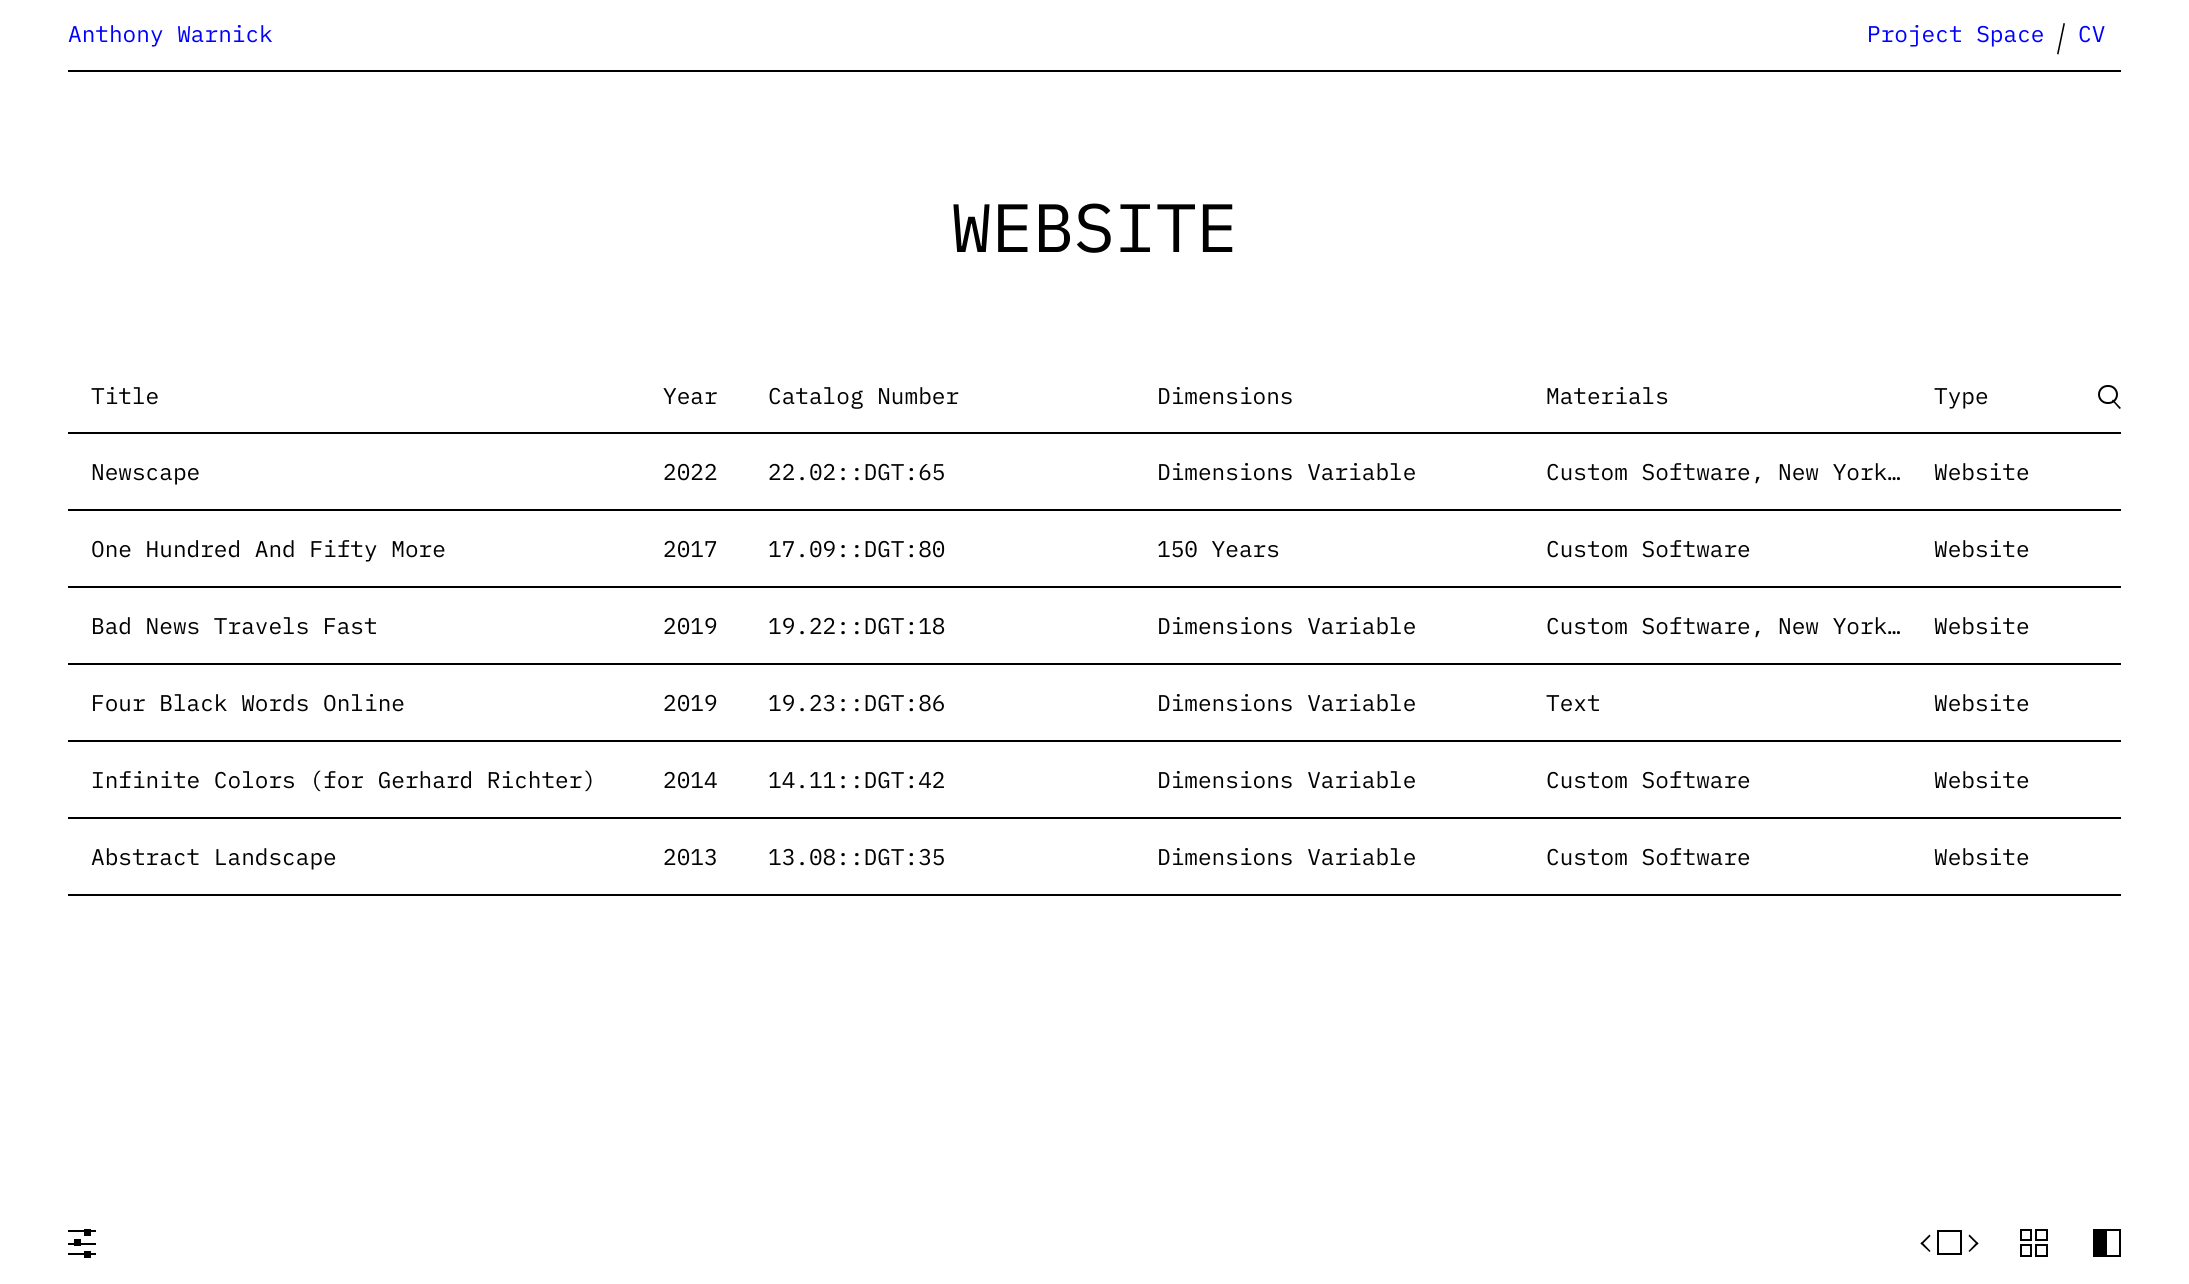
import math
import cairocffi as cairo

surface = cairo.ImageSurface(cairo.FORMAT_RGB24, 2189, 1284)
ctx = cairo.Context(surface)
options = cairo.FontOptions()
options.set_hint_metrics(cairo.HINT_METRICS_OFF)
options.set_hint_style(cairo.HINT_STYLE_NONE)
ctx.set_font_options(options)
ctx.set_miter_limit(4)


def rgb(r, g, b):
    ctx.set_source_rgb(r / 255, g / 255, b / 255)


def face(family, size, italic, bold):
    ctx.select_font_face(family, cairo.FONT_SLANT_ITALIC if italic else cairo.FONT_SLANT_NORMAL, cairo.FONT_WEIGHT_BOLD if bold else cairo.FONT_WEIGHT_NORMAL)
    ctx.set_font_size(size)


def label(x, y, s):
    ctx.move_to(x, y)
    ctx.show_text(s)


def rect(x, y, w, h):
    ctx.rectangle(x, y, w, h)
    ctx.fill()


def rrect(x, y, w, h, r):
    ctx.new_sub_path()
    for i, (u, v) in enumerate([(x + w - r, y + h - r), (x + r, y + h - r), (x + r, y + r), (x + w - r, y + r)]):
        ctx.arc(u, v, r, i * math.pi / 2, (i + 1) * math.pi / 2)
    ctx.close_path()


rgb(255, 255, 255)
ctx.paint()
rgb(0, 0, 0)
rect(68, 70, 2053, 2)
face('IBM Plex Mono', 22.75, 0, 0)
rgb(0, 0, 255)
label(68, 42, 'Anthony Warnick')
label(1867, 42, 'Project Space')
rgb(0, 0, 0)
ctx.new_path()
ctx.move_to(2063.5, 23)
ctx.line_to(2065, 23.5)
ctx.line_to(2058.5, 54.5)
ctx.line_to(2057, 54)
ctx.close_path()
ctx.fill()
rgb(0, 0, 255)
label(2078, 42, 'CV')
face('IBM Plex Mono', 68.25, 0, 0)
rgb(0, 0, 0)
label(951, 252, 'WEBSITE')
rect(68, 432, 2053, 2)
face('IBM Plex Mono', 22.75, 0, 0)
label(91, 404, 'Title')
label(663, 404, 'Year')
label(768, 404, 'Catalog Number')
label(1157, 404, 'Dimensions')
label(1546, 404, 'Materials')
label(1934, 404, 'Type')
ctx.new_path()
ctx.move_to(2112, 400.5)
ctx.line_to(2113, 399.5)
ctx.line_to(2121, 408)
ctx.line_to(2119.5, 409)
ctx.close_path()
ctx.fill()
rrect(2099, 386, 18, 17, 8.5)
ctx.stroke()
rect(68, 509, 2053, 2)
label(91, 480, 'Newscape')
label(663, 480, '2022')
label(768, 480, '22.02::DGT:65')
label(1157, 480, 'Dimensions Variable')
label(1546, 480, 'Custom Software, New York…')
label(1934, 480, 'Website')
rect(68, 586, 2053, 2)
label(91, 557, 'One Hundred And Fifty More')
label(663, 557, '2017')
label(768, 557, '17.09::DGT:80')
label(1157, 557, '150 Years')
label(1546, 557, 'Custom Software')
label(1934, 557, 'Website')
rect(68, 663, 2053, 2)
label(91, 634, 'Bad News Travels Fast')
label(663, 634, '2019')
label(768, 634, '19.22::DGT:18')
label(1157, 634, 'Dimensions Variable')
label(1546, 634, 'Custom Software, New York…')
label(1934, 634, 'Website')
rect(68, 740, 2053, 2)
label(91, 711, 'Four Black Words Online')
label(663, 711, '2019')
label(768, 711, '19.23::DGT:86')
label(1157, 711, 'Dimensions Variable')
label(1546, 711, 'Text')
label(1934, 711, 'Website')
rect(68, 817, 2053, 2)
label(91, 788, 'Infinite Colors (for Gerhard Richter)')
label(663, 788, '2014')
label(768, 788, '14.11::DGT:42')
label(1157, 788, 'Dimensions Variable')
label(1546, 788, 'Custom Software')
label(1934, 788, 'Website')
rect(68, 894, 2053, 2)
label(91, 865, 'Abstract Landscape')
label(663, 865, '2013')
label(768, 865, '13.08::DGT:35')
label(1157, 865, 'Dimensions Variable')
label(1546, 865, 'Custom Software')
label(1934, 865, 'Website')
rect(68, 1230, 28, 2)
rect(84, 1229, 7, 7)
rect(68, 1243, 28, 2)
rect(74, 1239, 7, 7)
rect(68, 1253, 28, 2)
rect(84, 1251, 7, 7)
ctx.rectangle(1938, 1231, 23, 23)
ctx.stroke()
ctx.new_path()
ctx.move_to(1968.5, 1236)
ctx.line_to(1969.5, 1234.5)
ctx.line_to(1978.5, 1243.5)
ctx.line_to(1977, 1244.5)
ctx.close_path()
ctx.fill()
ctx.new_path()
ctx.move_to(1968.5, 1251)
ctx.line_to(1977, 1242)
ctx.line_to(1978.5, 1243.5)
ctx.line_to(1969.5, 1252)
ctx.close_path()
ctx.move_to(1920.5, 1243.5)
ctx.line_to(1929.5, 1234.5)
ctx.line_to(1930.5, 1236)
ctx.line_to(1922, 1244.5)
ctx.close_path()
ctx.fill()
ctx.new_path()
ctx.move_to(1920.5, 1243.5)
ctx.line_to(1922, 1242)
ctx.line_to(1930.5, 1251)
ctx.line_to(1929.5, 1252)
ctx.close_path()
ctx.fill()
ctx.rectangle(2021, 1230, 10, 10)
ctx.stroke()
ctx.rectangle(2036, 1230, 11, 10)
ctx.stroke()
ctx.rectangle(2021, 1245, 10, 11)
ctx.stroke()
ctx.rectangle(2036, 1245, 11, 11)
ctx.stroke()
ctx.rectangle(2094, 1230, 26, 26)
ctx.stroke()
rect(2095, 1231, 12, 24)
surface.write_to_png('render.png')
